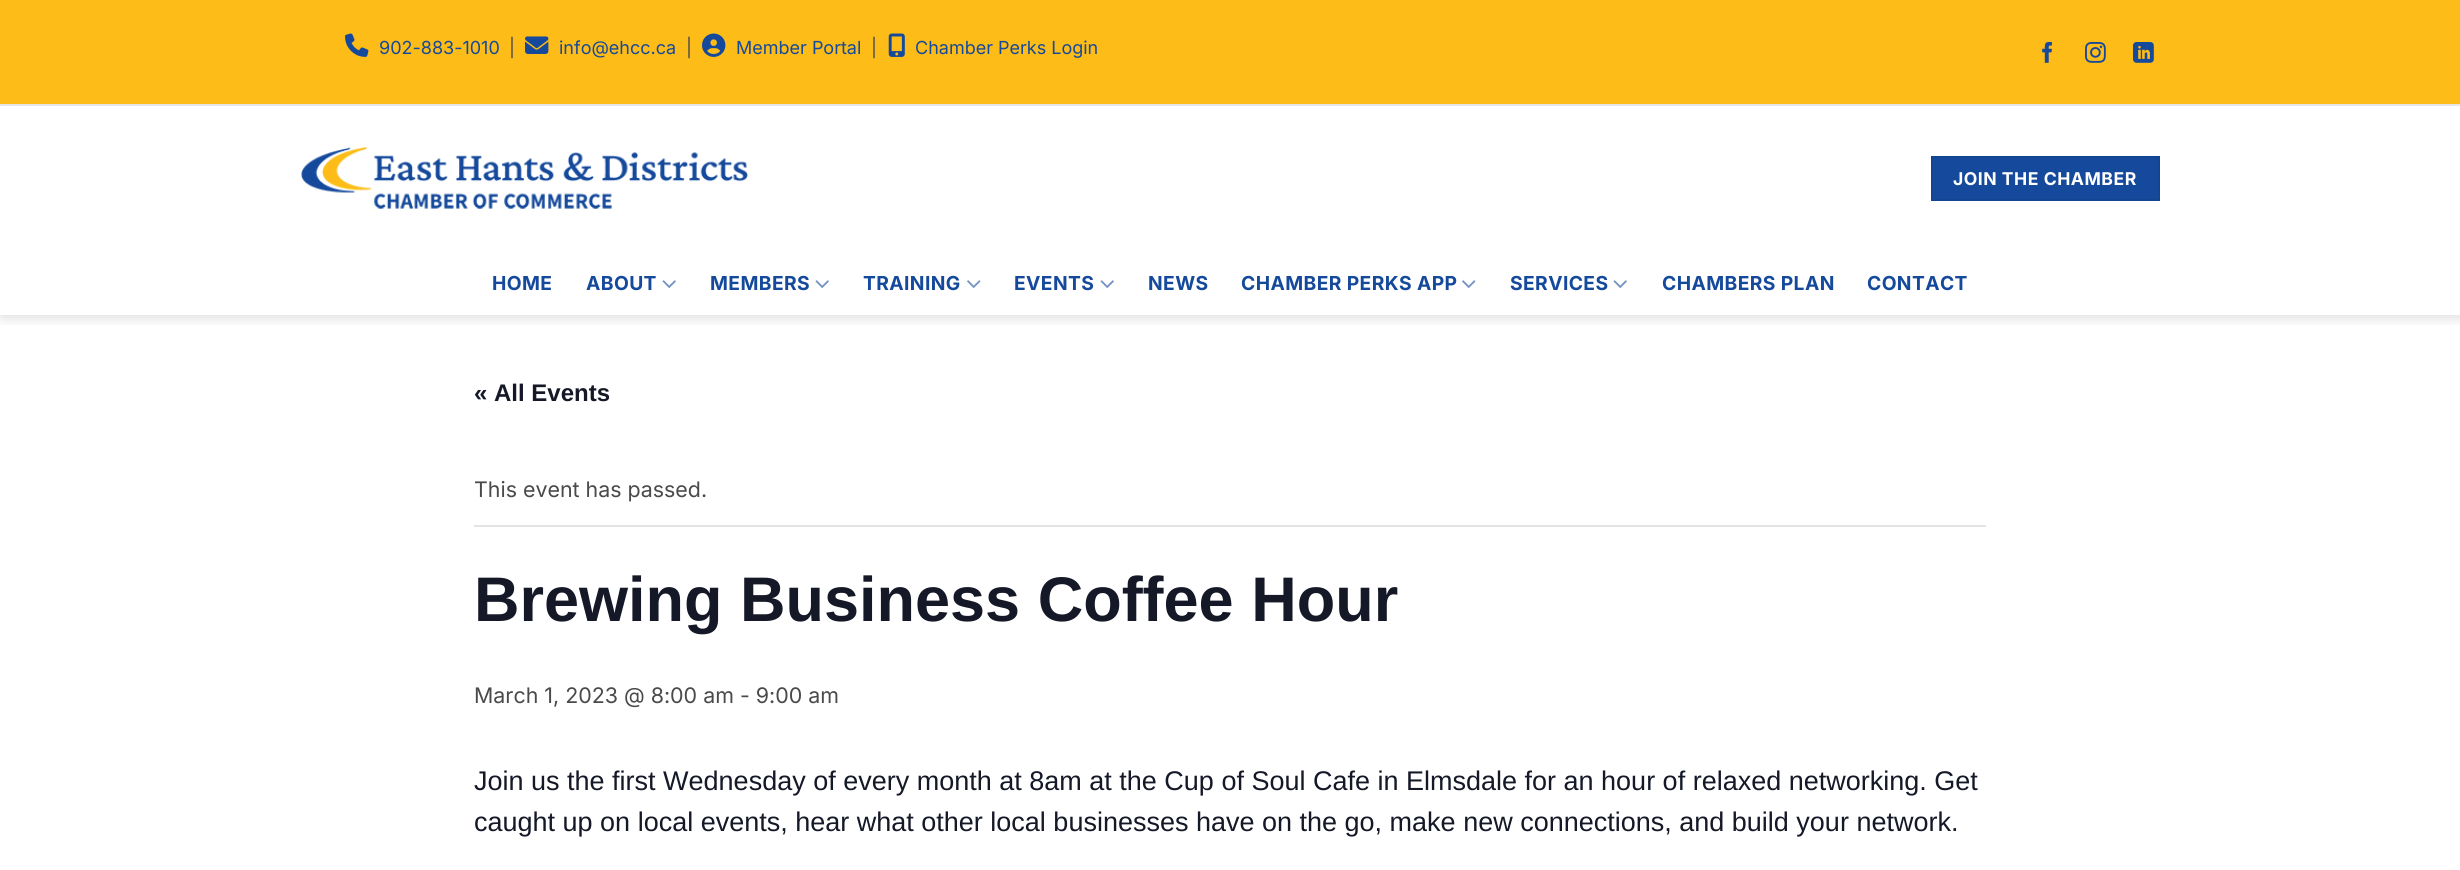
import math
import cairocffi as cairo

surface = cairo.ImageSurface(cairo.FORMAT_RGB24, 2460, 870)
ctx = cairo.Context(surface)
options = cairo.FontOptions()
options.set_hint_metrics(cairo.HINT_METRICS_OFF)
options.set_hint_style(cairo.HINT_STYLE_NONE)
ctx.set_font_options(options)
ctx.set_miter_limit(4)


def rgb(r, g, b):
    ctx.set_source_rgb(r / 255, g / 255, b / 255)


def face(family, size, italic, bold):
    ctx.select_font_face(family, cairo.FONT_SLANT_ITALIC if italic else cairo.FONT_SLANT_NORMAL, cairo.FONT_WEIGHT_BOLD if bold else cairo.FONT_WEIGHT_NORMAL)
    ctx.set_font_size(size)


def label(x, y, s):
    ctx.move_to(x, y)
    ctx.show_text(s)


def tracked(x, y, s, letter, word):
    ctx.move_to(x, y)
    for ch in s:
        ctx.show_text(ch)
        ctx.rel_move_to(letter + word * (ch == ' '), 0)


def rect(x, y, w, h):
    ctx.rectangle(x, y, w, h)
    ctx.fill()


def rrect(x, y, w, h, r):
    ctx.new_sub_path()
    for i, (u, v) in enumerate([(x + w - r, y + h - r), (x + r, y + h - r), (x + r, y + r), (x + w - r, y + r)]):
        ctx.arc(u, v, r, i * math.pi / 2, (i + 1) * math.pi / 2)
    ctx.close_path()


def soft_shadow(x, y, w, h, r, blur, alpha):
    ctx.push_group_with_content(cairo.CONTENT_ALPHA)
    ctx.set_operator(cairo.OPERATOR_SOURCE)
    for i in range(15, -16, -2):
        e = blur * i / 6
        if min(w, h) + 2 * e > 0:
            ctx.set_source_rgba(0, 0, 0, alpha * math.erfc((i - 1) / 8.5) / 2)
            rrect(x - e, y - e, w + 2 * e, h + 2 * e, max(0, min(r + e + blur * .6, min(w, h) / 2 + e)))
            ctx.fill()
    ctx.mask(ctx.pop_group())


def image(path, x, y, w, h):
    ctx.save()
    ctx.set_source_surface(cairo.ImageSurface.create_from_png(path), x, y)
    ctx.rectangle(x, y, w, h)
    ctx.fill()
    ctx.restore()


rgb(255, 255, 255)
ctx.paint()
ctx.save()
ctx.rectangle(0, 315, 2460, 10)
ctx.clip()
rgb(0, 0, 0)
soft_shadow(2, 2, 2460, 315, 0, 7.5, 0.15)
ctx.restore()
rgb(253, 188, 24)
rect(0, 0, 2460, 104)
rgb(230, 230, 230)
rect(0, 104, 2460, 2)
image('image0.png', 345, 33, 24, 24)
face('Inter', 18, 0, 0)
rgb(21, 73, 155)
label(379, 54, '902-883-1010')
rgb(74, 74, 74)
label(509, 54, '|')
image('image1.png', 525, 36, 24, 18)
rgb(21, 73, 155)
label(559, 54, 'info@ehcc.ca')
rgb(74, 74, 74)
label(686, 54, '|')
image('image2.png', 702, 33, 24, 24)
rgb(21, 73, 155)
label(736, 54, 'Member Portal')
rgb(74, 74, 74)
label(871, 54, '|')
image('image3.png', 888, 33, 17, 24)
rgb(21, 73, 155)
label(915, 54, 'Chamber Perks Login')
image('image4.png', 2042, 42, 10, 21)
image('image5.png', 2085, 42, 21, 21)
image('image6.png', 2133, 42, 21, 21)
image('image7.png', 301, 147, 447, 62)
ctx.rectangle(1932, 157, 227, 43)
ctx.fill_preserve()
rgb(20, 69, 147)
ctx.stroke()
face('Inter', 17.6, 0, 1)
rgb(255, 255, 255)
tracked(1953, 185, 'JOIN THE CHAMBER', 0.5, 0)
face('Inter', 19.25, 0, 1)
rgb(21, 73, 155)
tracked(492, 290, 'HOME', 0.4, 0)
tracked(586, 290, 'ABOUT', 0.4, 0)
image('image8.png', 662, 280, 14, 8)
tracked(710, 290, 'MEMBERS', 0.4, 0)
image('image8.png', 815, 280, 14, 8)
tracked(863, 290, 'TRAINING', 0.4, 0)
image('image9.png', 967, 280, 14, 8)
tracked(1014, 290, 'EVENTS', 0.4, 0)
image('image8.png', 1100, 280, 14, 8)
tracked(1148, 290, 'NEWS', 0.4, 0)
tracked(1241, 290, 'CHAMBER PERKS APP', 0.4, 0)
image('image9.png', 1462, 280, 14, 8)
tracked(1510, 290, 'SERVICES', 0.4, 0)
image('image8.png', 1613, 280, 14, 8)
tracked(1662, 290, 'CHAMBERS PLAN', 0.4, 0)
tracked(1867, 290, 'CONTACT', 0.4, 0)
face('Liberation Sans', 24, 0, 1)
rgb(20, 24, 39)
label(474, 401, '« All Events')
rgb(228, 228, 228)
rect(474, 525, 1512, 2)
face('Inter', 21.4, 0, 0)
rgb(74, 74, 74)
label(474, 497, 'This event has passed.')
face('Liberation Sans', 63, 0, 1)
rgb(20, 24, 39)
label(474, 621, 'Brewing Business Coffee Hour')
face('Inter', 21.4, 0, 0)
rgb(74, 74, 74)
label(474, 703, 'March 1, 2023 @ 8:00 am - 9:00 am')
face('Liberation Sans', 27, 0, 0)
rgb(20, 24, 39)
label(474, 790, 'Join us the first Wednesday of every month at 8am at the Cup of Soul Cafe in Elmsdale for an hour of relaxed networking. Get')
label(474, 831, 'caught up on local events, hear what other local businesses have on the go, make new connections, and build your network.')
surface.write_to_png('render.png')
